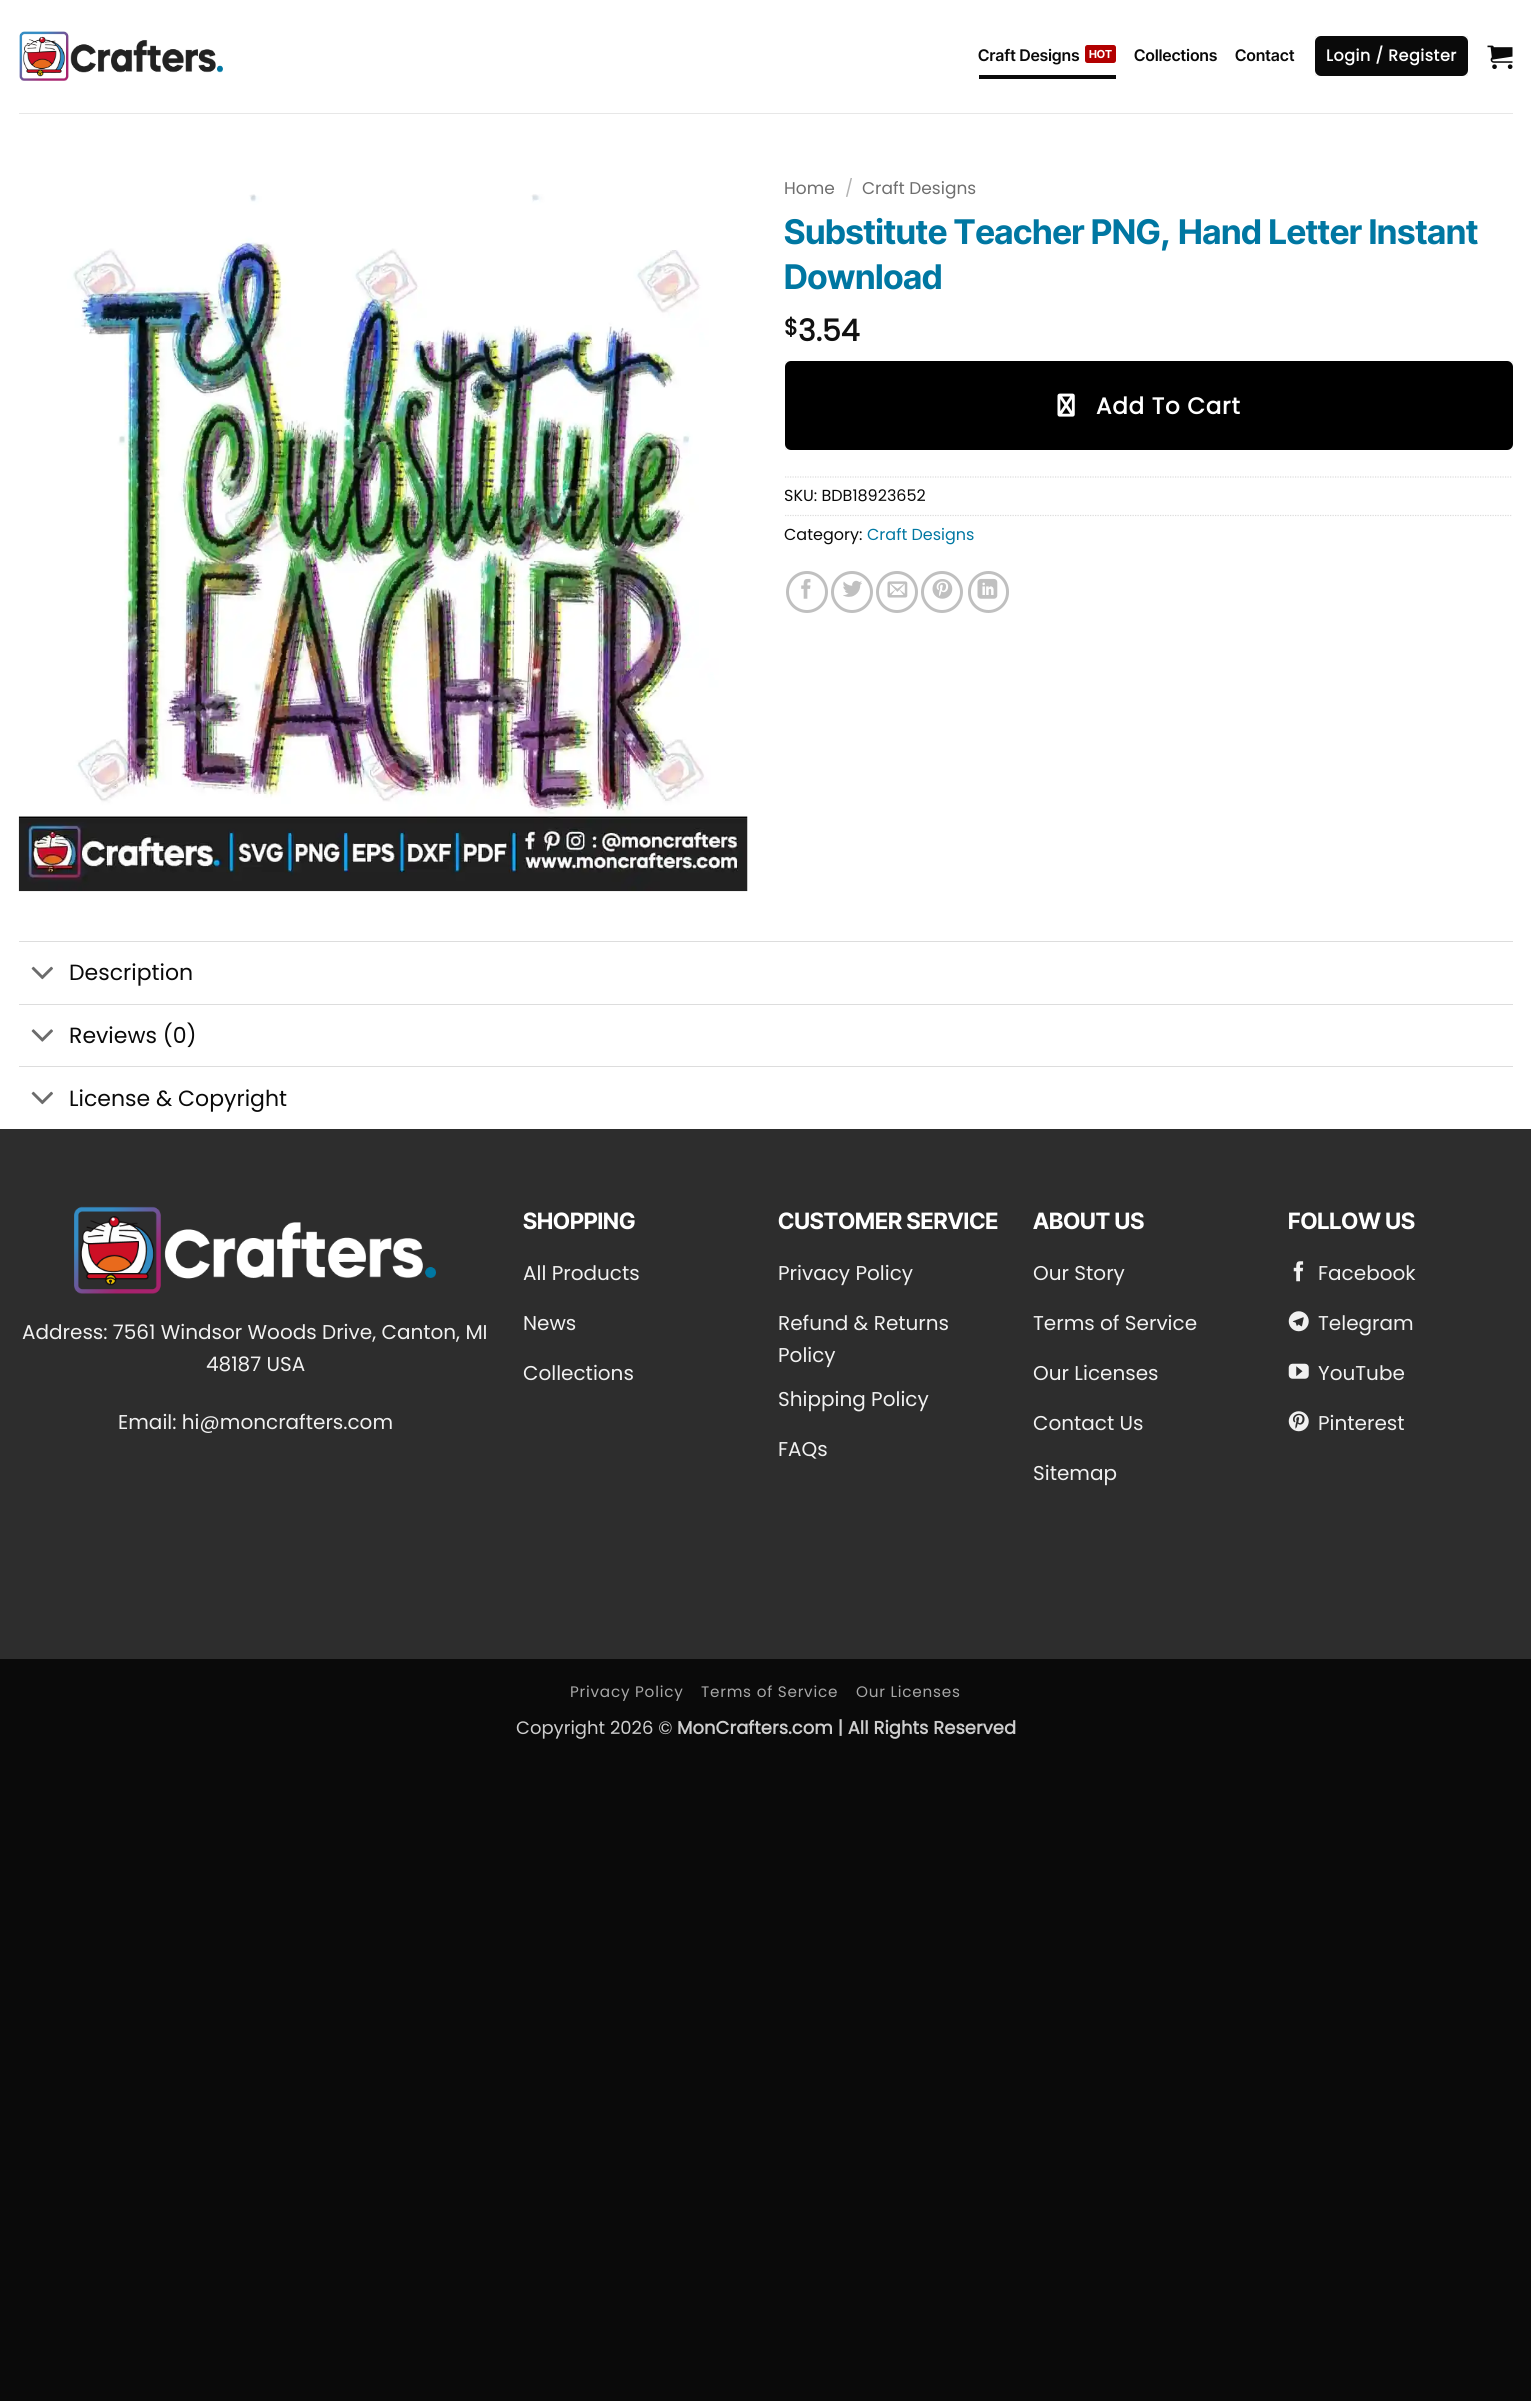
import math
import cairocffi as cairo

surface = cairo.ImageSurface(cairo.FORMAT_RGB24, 1531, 2401)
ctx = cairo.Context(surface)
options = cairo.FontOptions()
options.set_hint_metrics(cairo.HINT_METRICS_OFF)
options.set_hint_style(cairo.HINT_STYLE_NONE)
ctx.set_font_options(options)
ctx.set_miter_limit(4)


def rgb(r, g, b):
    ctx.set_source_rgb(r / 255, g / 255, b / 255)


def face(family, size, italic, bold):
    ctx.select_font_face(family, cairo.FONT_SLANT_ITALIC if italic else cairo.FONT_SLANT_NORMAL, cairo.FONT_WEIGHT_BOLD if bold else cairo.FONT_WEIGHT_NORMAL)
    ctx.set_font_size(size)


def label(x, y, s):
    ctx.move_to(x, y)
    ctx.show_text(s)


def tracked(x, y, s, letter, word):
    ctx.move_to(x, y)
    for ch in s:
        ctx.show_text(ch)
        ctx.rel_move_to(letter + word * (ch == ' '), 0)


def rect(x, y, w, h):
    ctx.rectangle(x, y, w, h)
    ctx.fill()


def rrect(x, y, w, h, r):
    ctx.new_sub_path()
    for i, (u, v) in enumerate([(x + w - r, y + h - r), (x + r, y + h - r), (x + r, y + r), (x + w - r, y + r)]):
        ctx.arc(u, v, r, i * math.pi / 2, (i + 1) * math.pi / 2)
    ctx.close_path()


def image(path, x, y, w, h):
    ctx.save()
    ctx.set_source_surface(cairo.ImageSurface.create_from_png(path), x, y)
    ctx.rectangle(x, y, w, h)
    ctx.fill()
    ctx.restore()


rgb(10, 10, 10)
ctx.paint()
rgb(255, 255, 255)
rect(0, 0, 1531, 1129)
image('image0.png', 19, 31, 204, 50)
face('Inter Tight SemiBold', 16, 0, 0)
rgb(10, 10, 10)
tracked(978, 61, 'Craft Designs', 0.25, 0)
rgb(178, 0, 0)
rrect(1085, 45, 31, 18, 2.5)
ctx.fill()
face('Inter Tight', 11, 0, 1)
rgb(255, 255, 255)
label(1089, 58, 'HOT')
rgb(10, 10, 10)
rect(979, 75, 137, 4)
face('Inter Tight SemiBold', 16, 0, 0)
tracked(1134, 61, 'Collections', 0.25, 0)
tracked(1235, 61, 'Contact', 0.25, 0)
rrect(1315, 36, 153, 40, 6)
ctx.fill()
ctx.rectangle(1315.5, 36.5, 152, 39)
ctx.set_source_rgba(0, 0, 0, 0.05)
ctx.set_line_width(1)
ctx.stroke()
face('Poppins', 16, 0, 1)
rgb(255, 255, 255)
tracked(1326, 61, 'Login / Register', 0.5, 0)
image('image1.png', 1487, 45, 26, 24)
rgb(231, 231, 231)
rect(19, 113, 1494, 1)
image('image2.png', 18, 194, 730, 698)
face('Poppins', 17, 0, 0)
rgb(110, 110, 110)
label(784, 194, 'Home')
rgb(178, 178, 178)
label(845, 194, '/')
rgb(110, 110, 110)
label(862, 194, 'Craft Designs')
face('Inter Tight', 34, 0, 1)
rgb(0, 119, 162)
label(784, 244, 'Substitute Teacher PNG, Hand Letter Instant')
label(784, 289, 'Download')
face('Poppins', 22.5, 0, 1)
rgb(17, 17, 17)
label(784, 335, '$')
face('Poppins', 30, 0, 1)
label(798, 341, '3.54')
rgb(0, 0, 0)
rrect(785, 361, 728, 89, 6)
ctx.fill()
ctx.rectangle(785.5, 361.5, 727, 88)
ctx.set_source_rgba(0, 0, 0, 0.05)
ctx.stroke()
image('image3.png', 1057, 393, 18, 24)
face('Poppins', 23, 0, 1)
rgb(255, 255, 255)
tracked(1096, 414, 'Add To Cart', 0.75, 0)
ctx.new_path()
ctx.move_to(785, 477)
ctx.line_to(1512.5, 477)
rgb(221, 221, 221)
ctx.set_line_width(1.2)
ctx.set_dash([1.25, 1.25])
ctx.stroke()
face('Poppins', 16, 0, 0)
rgb(10, 10, 10)
label(784, 501, 'SKU: BDB18923652')
ctx.new_path()
ctx.move_to(785, 515.5)
ctx.line_to(1512.5, 515.5)
rgb(221, 221, 221)
ctx.stroke()
rgb(10, 10, 10)
label(784, 540, 'Category:')
rgb(0, 119, 162)
label(867, 540, 'Craft Designs')
ctx.new_path()
ctx.arc(807, 592, 19.5, 0, 2 * math.pi)
rgb(192, 192, 192)
ctx.set_line_width(3)
ctx.set_dash([])
ctx.stroke()
image('image4.png', 801, 578, 10, 21)
ctx.arc(852, 592, 19.5, 0, 2 * math.pi)
ctx.stroke()
image('image5.png', 843, 580, 19, 17)
ctx.arc(897, 592, 19.5, 0, 2 * math.pi)
ctx.stroke()
image('image6.png', 887, 581, 21, 17)
ctx.arc(942, 592, 19.5, 0, 2 * math.pi)
ctx.stroke()
image('image7.png', 932, 579, 21, 20)
rrect(969.5, 572.5, 38, 39, 19)
ctx.stroke()
image('image8.png', 977, 578, 21, 21)
rgb(221, 221, 221)
rect(19, 941, 1494, 1)
image('image9.png', 31, 966, 22, 14)
face('Poppins', 22, 0, 0)
rgb(10, 10, 10)
label(69, 980, 'Description')
rgb(221, 221, 221)
rect(19, 1004, 1494, 1)
image('image10.png', 31, 1029, 22, 13)
rgb(10, 10, 10)
label(69, 1043, 'Reviews (0)')
rgb(221, 221, 221)
rect(19, 1066, 1494, 1)
image('image9.png', 31, 1091, 22, 14)
rgb(10, 10, 10)
label(69, 1106, 'License & Copyright')
rgb(45, 45, 45)
rect(0, 1129, 1531, 530)
image('image11.png', 74, 1206, 362, 88)
face('Poppins', 20, 0, 0)
rgb(241, 241, 241)
label(22, 1339, 'Address: 7561 Windsor Woods Drive, Canton, MI')
label(206, 1371, '48187 USA')
label(118, 1429, 'Email: hi@moncrafters.com')
face('Inter Tight', 22.5, 0, 1)
rgb(255, 255, 255)
label(523, 1229, 'SHOPPING')
face('Poppins', 20, 0, 0)
rgb(241, 241, 241)
label(523, 1280, 'All Products')
label(523, 1330, 'News')
label(523, 1380, 'Collections')
face('Inter Tight', 22.5, 0, 1)
rgb(255, 255, 255)
label(778, 1229, 'CUSTOMER SERVICE')
face('Poppins', 20, 0, 0)
rgb(241, 241, 241)
label(778, 1280, 'Privacy Policy')
label(778, 1330, 'Refund & Returns')
label(778, 1362, 'Policy')
label(778, 1406, 'Shipping Policy')
label(778, 1456, 'FAQs')
face('Inter Tight', 22.5, 0, 1)
rgb(255, 255, 255)
label(1033, 1229, 'ABOUT US')
face('Poppins', 20, 0, 0)
rgb(241, 241, 241)
label(1033, 1280, 'Our Story')
label(1033, 1330, 'Terms of Service')
label(1033, 1380, 'Our Licenses')
label(1033, 1430, 'Contact Us')
label(1033, 1480, 'Sitemap')
face('Inter Tight', 22.5, 0, 1)
rgb(255, 255, 255)
label(1288, 1229, 'FOLLOW US')
image('image12.png', 1293, 1261, 11, 21)
face('Poppins', 20, 0, 0)
rgb(241, 241, 241)
label(1318, 1280, 'Facebook')
image('image13.png', 1288, 1311, 21, 21)
label(1318, 1330, 'Telegram')
image('image14.png', 1288, 1363, 21, 16)
label(1318, 1380, 'YouTube')
image('image15.png', 1288, 1411, 21, 21)
label(1318, 1430, 'Pinterest')
face('Poppins', 15.25, 0, 0)
rgb(167, 167, 167)
tracked(570, 1697, 'Privacy Policy', 0.75, 0)
tracked(701, 1697, 'Terms of Service', 0.75, 0)
tracked(856, 1697, 'Our Licenses', 0.75, 0)
face('Poppins', 18, 0, 0)
rgb(206, 206, 206)
label(516, 1734, 'Copyright 2026 ©')
face('Poppins', 18, 0, 1)
label(677, 1734, 'MonCrafters.com | All Rights Reserved')
surface.write_to_png('render.png')
